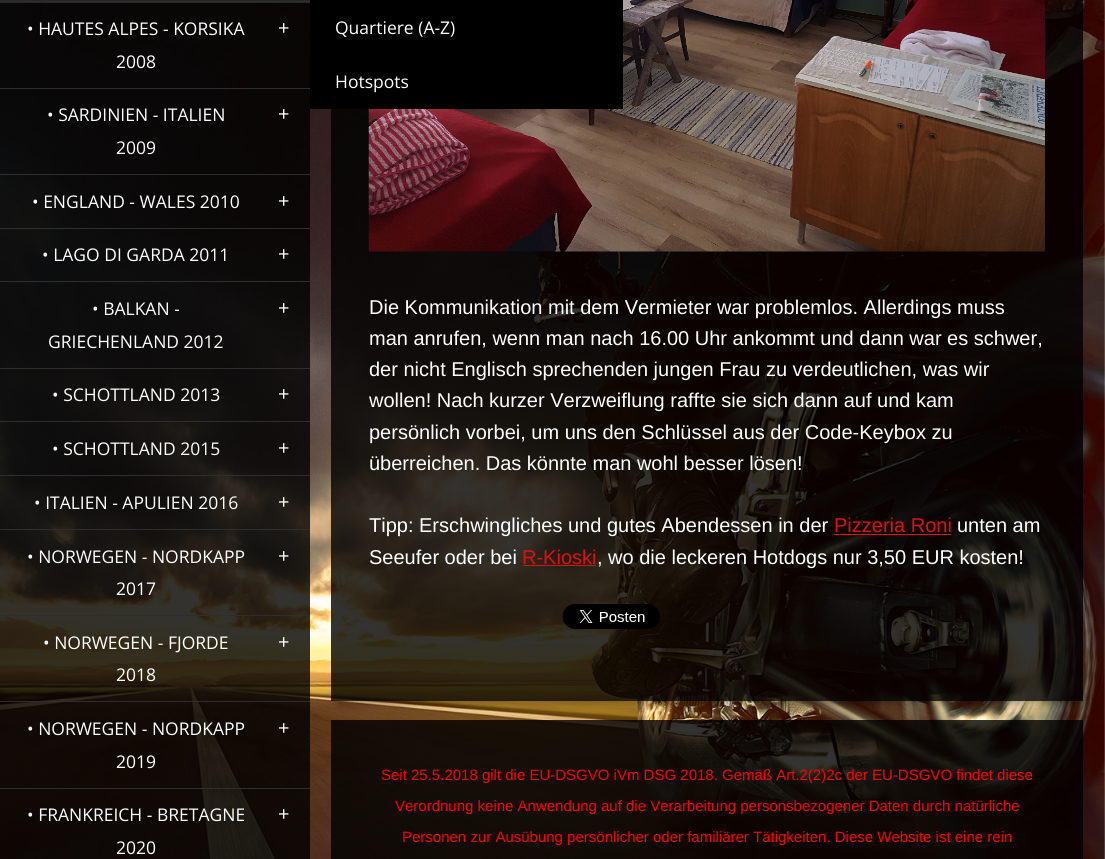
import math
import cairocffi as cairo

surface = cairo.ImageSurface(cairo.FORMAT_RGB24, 1105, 859)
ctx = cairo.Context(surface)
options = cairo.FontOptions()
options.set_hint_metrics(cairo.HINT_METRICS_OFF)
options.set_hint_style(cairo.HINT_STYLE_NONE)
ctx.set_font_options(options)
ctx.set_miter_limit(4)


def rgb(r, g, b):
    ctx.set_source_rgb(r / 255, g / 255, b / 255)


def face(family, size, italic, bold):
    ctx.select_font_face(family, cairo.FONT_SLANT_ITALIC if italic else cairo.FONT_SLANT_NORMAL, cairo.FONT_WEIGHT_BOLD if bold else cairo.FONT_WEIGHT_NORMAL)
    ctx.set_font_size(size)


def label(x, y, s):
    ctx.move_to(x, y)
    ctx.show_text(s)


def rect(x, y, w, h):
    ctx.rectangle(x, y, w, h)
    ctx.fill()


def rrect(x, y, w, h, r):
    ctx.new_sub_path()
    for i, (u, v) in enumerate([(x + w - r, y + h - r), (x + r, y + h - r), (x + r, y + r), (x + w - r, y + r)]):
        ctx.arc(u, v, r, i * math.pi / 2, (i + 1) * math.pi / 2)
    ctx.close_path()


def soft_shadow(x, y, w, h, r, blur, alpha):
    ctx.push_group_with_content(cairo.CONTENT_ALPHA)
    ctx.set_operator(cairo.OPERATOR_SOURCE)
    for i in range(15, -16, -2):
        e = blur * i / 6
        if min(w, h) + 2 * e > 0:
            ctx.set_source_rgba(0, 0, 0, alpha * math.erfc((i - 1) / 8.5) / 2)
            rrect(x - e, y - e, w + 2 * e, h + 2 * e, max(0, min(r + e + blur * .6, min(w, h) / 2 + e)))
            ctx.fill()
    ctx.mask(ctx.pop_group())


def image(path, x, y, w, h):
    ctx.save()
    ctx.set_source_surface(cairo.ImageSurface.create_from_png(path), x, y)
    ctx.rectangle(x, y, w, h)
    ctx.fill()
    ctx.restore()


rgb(255, 255, 255)
ctx.paint()
image('image0.png', 0, 0, 1105, 859)
ctx.set_source_rgba(0, 0, 0, 0.8)
rect(0, 3, 310, 856)
rgb(46, 46, 46)
rect(0, 88, 310, 1)
face('Open Sans', 17.5, 0, 0)
rgb(255, 255, 255)
label(27, 35, '• HAUTES ALPES - KORSIKA')
label(116, 68, '2008')
face('Open Sans', 20, 0, 0)
label(278, 35, '+')
rgb(39, 39, 39)
rect(0, 0, 310, 3)
rgb(46, 46, 46)
rect(0, 1, 310, 1)
ctx.save()
ctx.rectangle(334, 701, 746, 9)
ctx.clip()
rgb(0, 0, 0)
soft_shadow(339, -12, 736, 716, 0, 4, 0.35)
ctx.restore()
ctx.set_source_rgba(0, 0, 0, 0.8)
rect(331, 0, 752, 604)
image('image1.png', 368, 0, 677, 252)
rgb(0, 0, 0)
rect(310, 0, 313, 109)
face('Open Sans', 17.5, 0, 0)
rgb(255, 255, 255)
label(335, 34, 'Quartiere (A-Z)')
label(335, 88, 'Hotspots')
rgb(46, 46, 46)
rect(0, 174, 310, 1)
rgb(255, 255, 255)
label(47, 121, '• SARDINIEN - ITALIEN')
label(116, 154, '2009')
face('Open Sans', 20, 0, 0)
label(278, 121, '+')
rgb(46, 46, 46)
rect(0, 228, 310, 1)
face('Open Sans', 17.5, 0, 0)
rgb(255, 255, 255)
label(32, 208, '• ENGLAND - WALES 2010')
face('Open Sans', 20, 0, 0)
label(278, 208, '+')
rgb(46, 46, 46)
rect(0, 281, 310, 1)
face('Open Sans', 17.5, 0, 0)
rgb(255, 255, 255)
label(42, 261, '• LAGO DI GARDA 2011')
face('Open Sans', 20, 0, 0)
label(278, 261, '+')
rgb(46, 46, 46)
rect(0, 368, 310, 1)
face('Open Sans', 17.5, 0, 0)
rgb(255, 255, 255)
label(92, 315, '• BALKAN -')
label(48, 348, 'GRIECHENLAND 2012')
face('Open Sans', 20, 0, 0)
label(278, 315, '+')
rgb(46, 46, 46)
rect(0, 421, 310, 1)
face('Open Sans', 17.5, 0, 0)
rgb(255, 255, 255)
label(52, 401, '• SCHOTTLAND 2013')
face('Open Sans', 20, 0, 0)
label(278, 401, '+')
rgb(46, 46, 46)
rect(0, 475, 310, 1)
face('Open Sans', 17.5, 0, 0)
rgb(255, 255, 255)
label(52, 455, '• SCHOTTLAND 2015')
face('Open Sans', 20, 0, 0)
label(278, 455, '+')
rgb(46, 46, 46)
rect(0, 529, 310, 1)
face('Open Sans', 17.5, 0, 0)
rgb(255, 255, 255)
label(34, 509, '• ITALIEN - APULIEN 2016')
face('Open Sans', 20, 0, 0)
label(278, 509, '+')
rgb(46, 46, 46)
rect(0, 615, 310, 1)
face('Open Sans', 17.5, 0, 0)
rgb(255, 255, 255)
label(27, 563, '• NORWEGEN - NORDKAPP')
label(116, 595, '2017')
face('Open Sans', 20, 0, 0)
label(278, 563, '+')
rgb(46, 46, 46)
rect(0, 701, 310, 1)
face('Open Sans', 17.5, 0, 0)
rgb(255, 255, 255)
label(43, 649, '• NORWEGEN - FJORDE')
label(116, 681, '2018')
face('Open Sans', 20, 0, 0)
label(278, 649, '+')
rgb(46, 46, 46)
rect(0, 788, 310, 1)
face('Open Sans', 17.5, 0, 0)
rgb(255, 255, 255)
label(27, 735, '• NORWEGEN - NORDKAPP')
label(116, 768, '2019')
face('Open Sans', 20, 0, 0)
label(278, 735, '+')
face('Open Sans', 17.5, 0, 0)
label(27, 821, '• FRANKREICH - BRETAGNE')
label(116, 854, '2020')
face('Open Sans', 20, 0, 0)
label(278, 821, '+')
face('Liberation Sans', 20, 0, 0)
label(369, 314, 'Die Kommunikation mit dem Vermieter war problemlos. Allerdings muss')
label(369, 345, 'man anrufen, wenn man nach 16.00 Uhr ankommt und dann war es schwer,')
label(369, 376, 'der nicht Englisch sprechenden jungen Frau zu verdeutlichen, was wir')
label(369, 407, 'wollen! Nach kurzer Verzweiflung raffte sie sich dann auf und kam')
label(369, 439, 'persönlich vorbei, um uns den Schlüssel aus der Code-Keybox zu')
label(369, 470, 'überreichen. Das könnte man wohl besser lösen!')
label(369, 532, 'Tipp: Erschwingliches und gutes Abendessen in der')
rgb(226, 15, 15)
label(834, 532, 'Pizzeria Roni')
rect(834, 534, 117, 1)
rgb(255, 255, 255)
label(957, 532, 'unten am')
label(369, 564, 'Seeufer oder bei')
rgb(226, 15, 15)
label(522, 564, 'R-Kioski')
rgb(255, 255, 255)
label(597, 564, ', wo die leckeren Hotdogs nur 3,50 EUR kosten!')
rgb(226, 15, 15)
rect(523, 565, 73, 1)
ctx.set_source_rgba(0, 0, 0, 0.8)
rect(331, 604, 752, 97)
image('image2.png', 562, 604, 98, 25)
rect(331, 720, 752, 139)
face('Liberation Sans', 15, 0, 0)
rgb(255, 0, 0)
label(381, 780, 'Seit 25.5.2018 gilt die EU-DSGVO iVm DSG 2018. Gemäß Art.2(2)2c der EU-DSGVO findet diese')
label(395, 811, 'Verordnung keine Anwendung auf die Verarbeitung personsbezogener Daten durch natürliche')
label(402, 842, 'Personen zur Ausübung persönlicher oder familiärer Tätigkeiten. Diese Website ist eine rein')
surface.write_to_png('render.png')
